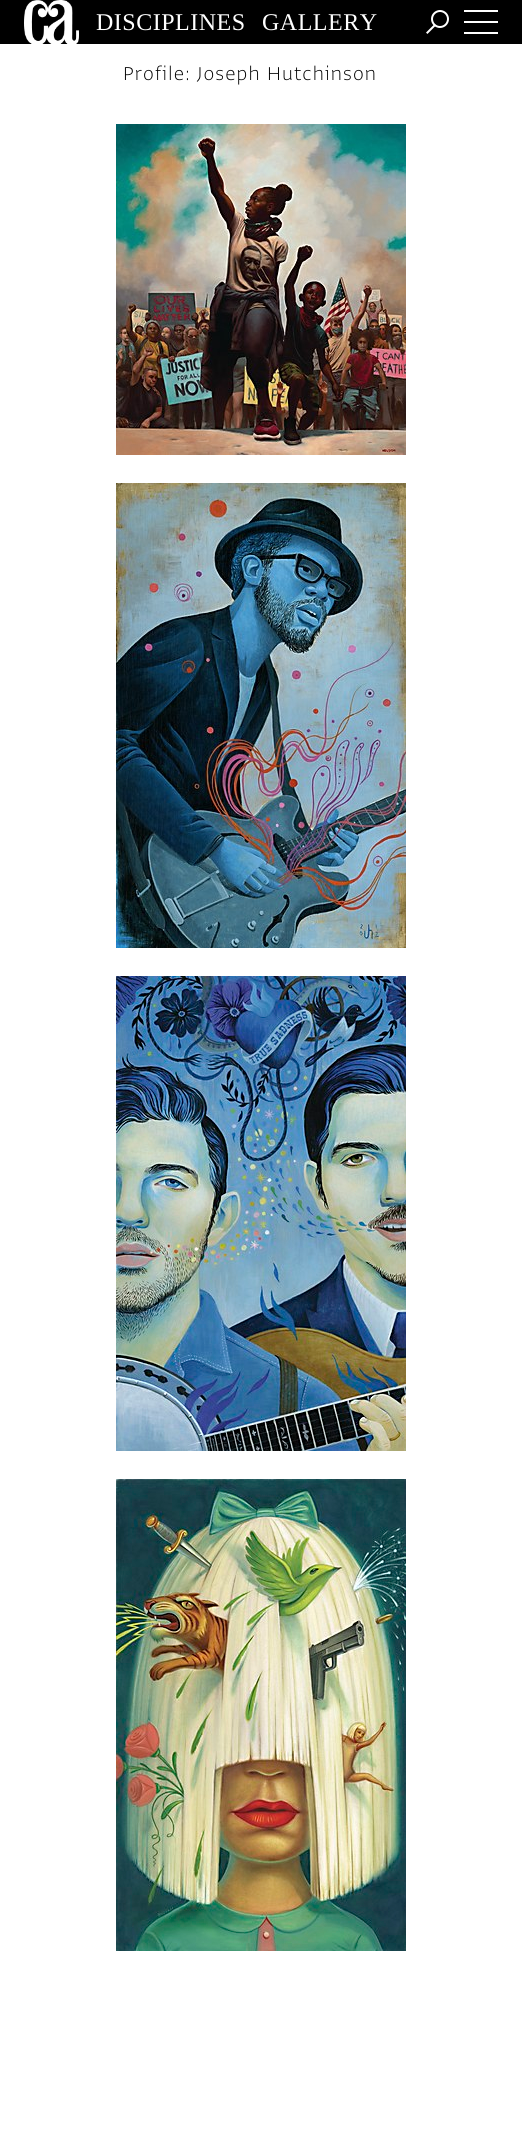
import math
import cairocffi as cairo

surface = cairo.ImageSurface(cairo.FORMAT_RGB24, 522, 2151)
ctx = cairo.Context(surface)
options = cairo.FontOptions()
options.set_hint_metrics(cairo.HINT_METRICS_OFF)
options.set_hint_style(cairo.HINT_STYLE_NONE)
ctx.set_font_options(options)
ctx.set_miter_limit(4)


def rgb(r, g, b):
    ctx.set_source_rgb(r / 255, g / 255, b / 255)


def face(family, size, italic, bold):
    ctx.select_font_face(family, cairo.FONT_SLANT_ITALIC if italic else cairo.FONT_SLANT_NORMAL, cairo.FONT_WEIGHT_BOLD if bold else cairo.FONT_WEIGHT_NORMAL)
    ctx.set_font_size(size)


def tracked(x, y, s, letter, word):
    ctx.move_to(x, y)
    for ch in s:
        ctx.show_text(ch)
        ctx.rel_move_to(letter + word * (ch == ' '), 0)


def rect(x, y, w, h):
    ctx.rectangle(x, y, w, h)
    ctx.fill()


def image(path, x, y, w, h):
    ctx.save()
    ctx.set_source_surface(cairo.ImageSurface.create_from_png(path), x, y)
    ctx.rectangle(x, y, w, h)
    ctx.fill()
    ctx.restore()


rgb(255, 255, 255)
ctx.paint()
rgb(0, 0, 0)
rect(0, 0, 522, 44)
image('image0.png', 24, 0, 55, 44)
face('Liberation Serif', 24, 0, 0)
rgb(255, 255, 255)
tracked(96, 30, 'DISCIPLINES', 0.5, 0)
tracked(262, 30, 'GALLERY', 0.5, 0)
image('image1.png', 426, 10, 23, 24)
rect(464, 10, 34, 2)
rect(464, 21, 34, 2)
rect(464, 32, 34, 2)
face('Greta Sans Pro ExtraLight', 22, 0, 0)
rgb(0, 0, 0)
tracked(123, 80, 'Profile: Joseph Hutchinson', 1.1, 0)
image('image2.png', 116, 124, 290, 331)
image('image3.png', 116, 483, 290, 465)
image('image4.png', 116, 976, 290, 475)
image('image5.png', 116, 1479, 290, 472)
surface.write_to_png('render.png')
